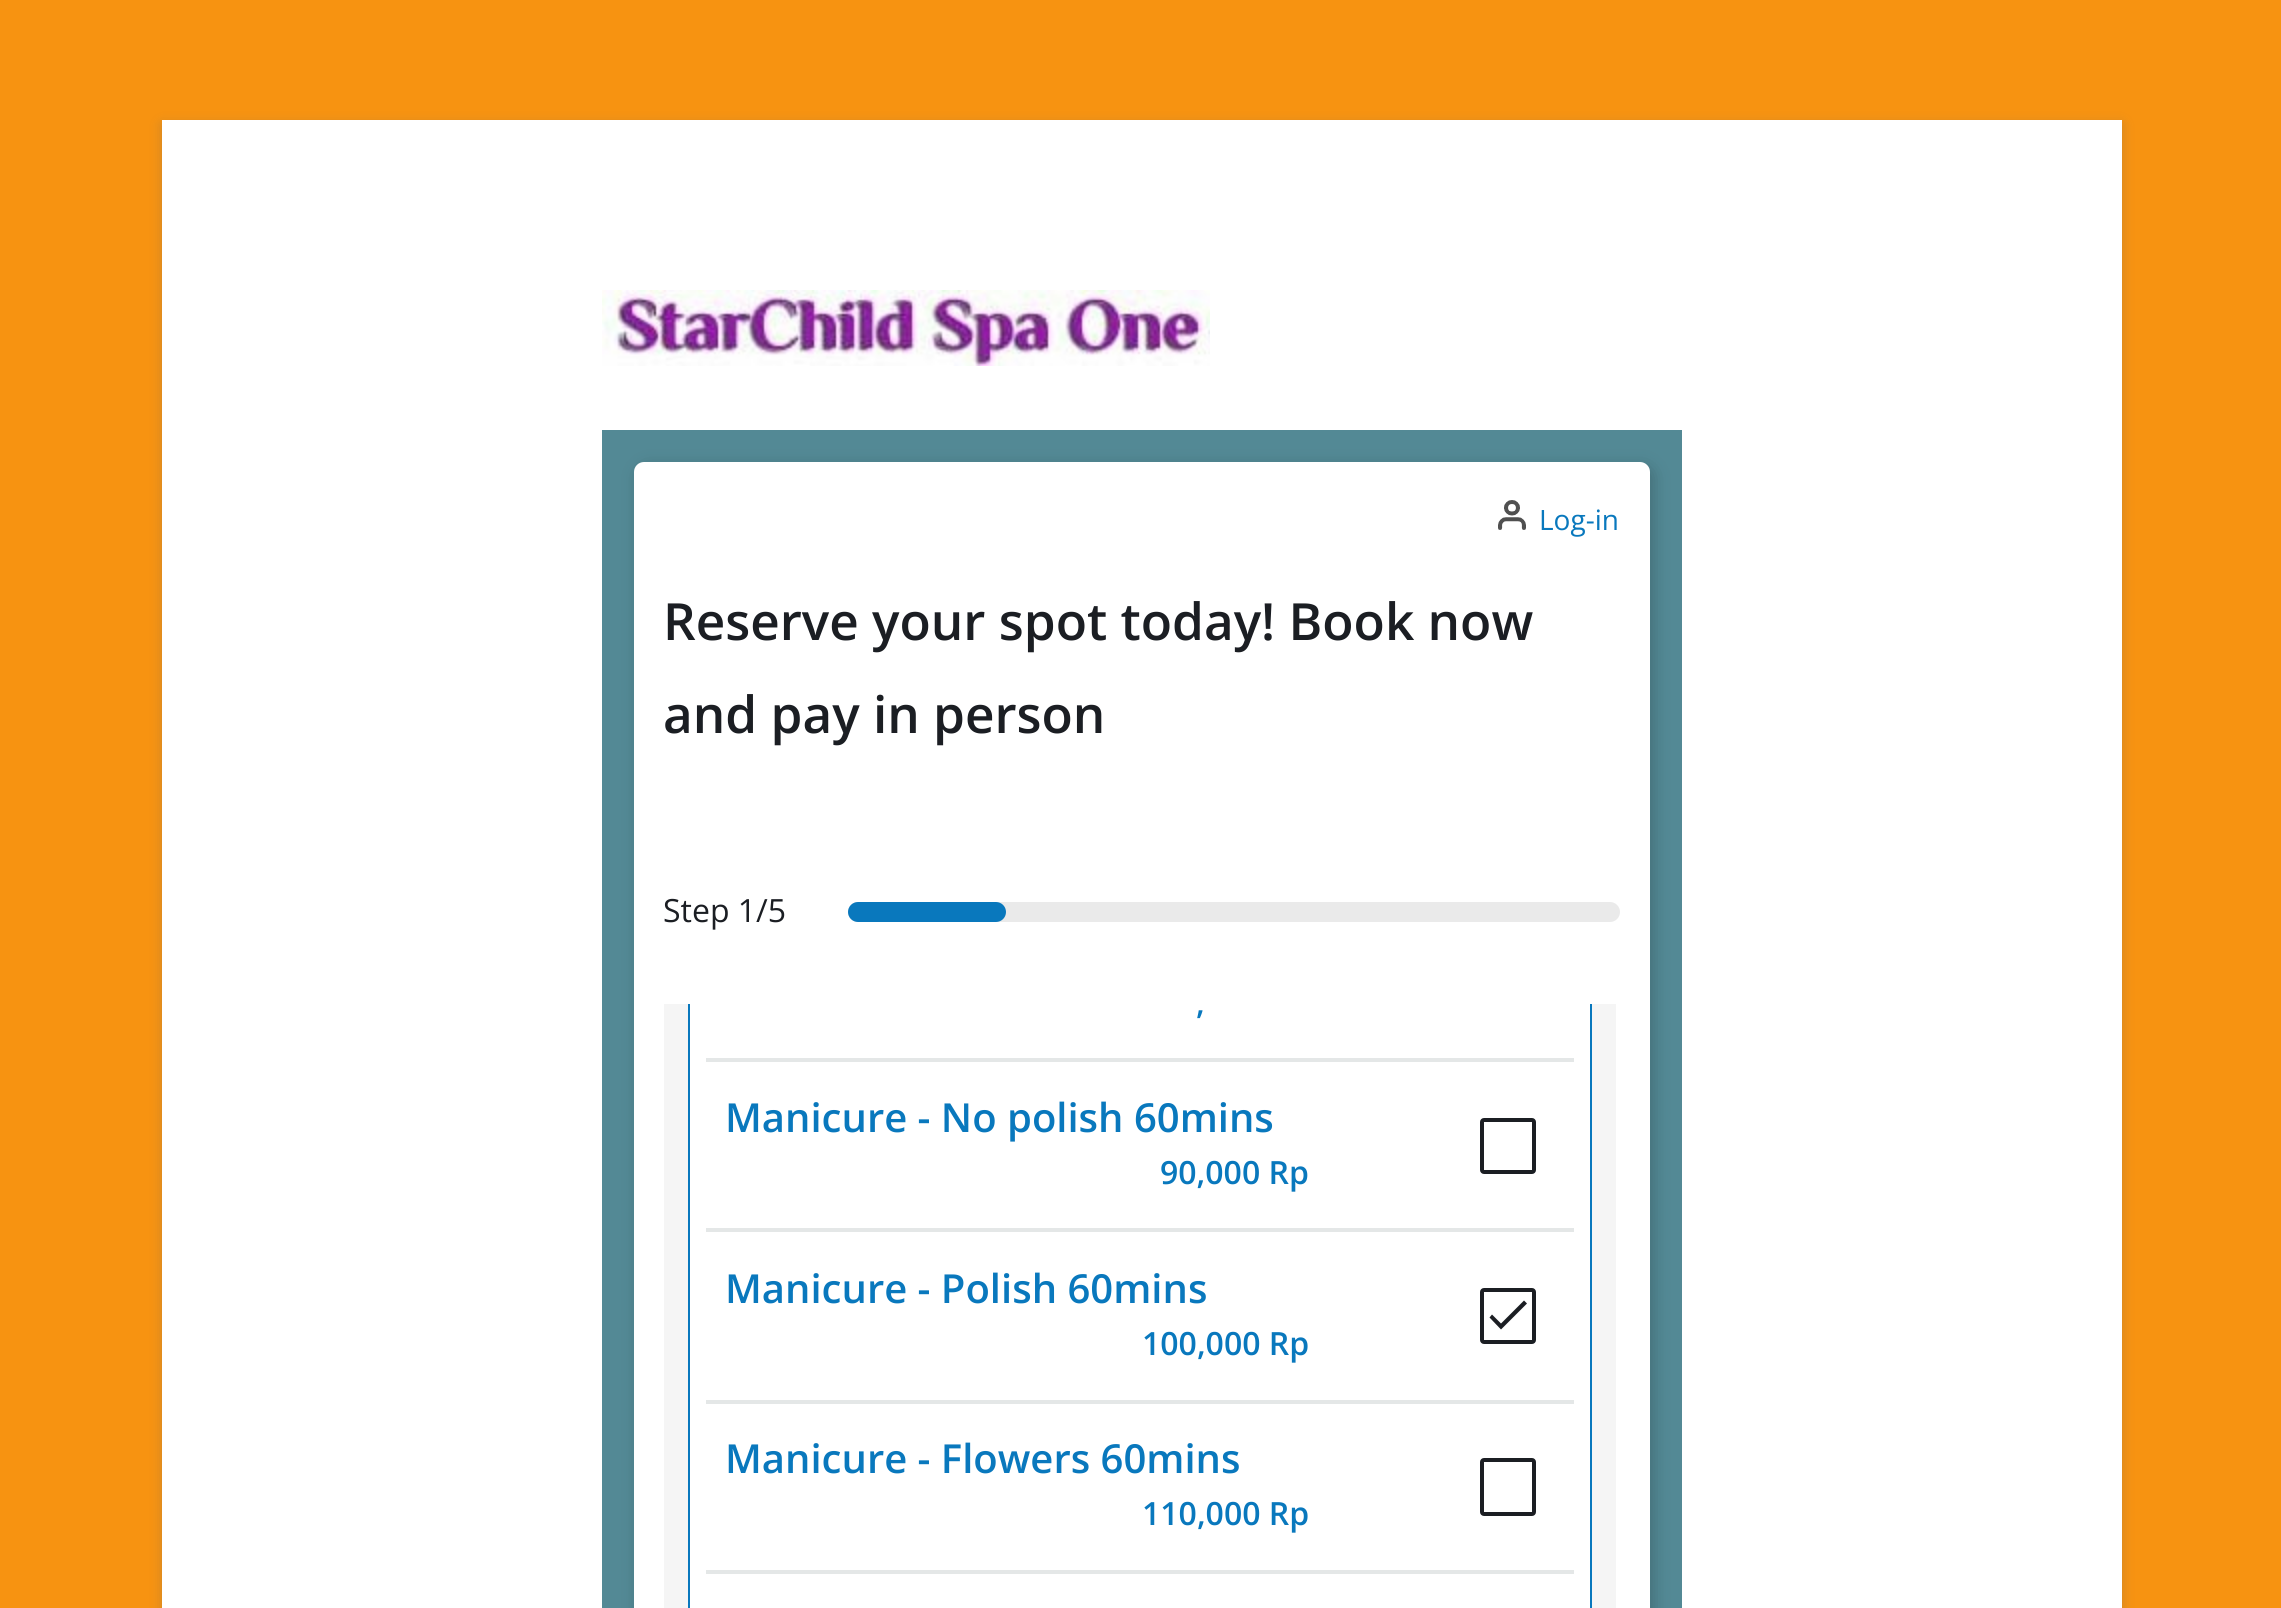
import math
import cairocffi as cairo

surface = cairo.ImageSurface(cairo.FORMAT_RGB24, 2281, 1608)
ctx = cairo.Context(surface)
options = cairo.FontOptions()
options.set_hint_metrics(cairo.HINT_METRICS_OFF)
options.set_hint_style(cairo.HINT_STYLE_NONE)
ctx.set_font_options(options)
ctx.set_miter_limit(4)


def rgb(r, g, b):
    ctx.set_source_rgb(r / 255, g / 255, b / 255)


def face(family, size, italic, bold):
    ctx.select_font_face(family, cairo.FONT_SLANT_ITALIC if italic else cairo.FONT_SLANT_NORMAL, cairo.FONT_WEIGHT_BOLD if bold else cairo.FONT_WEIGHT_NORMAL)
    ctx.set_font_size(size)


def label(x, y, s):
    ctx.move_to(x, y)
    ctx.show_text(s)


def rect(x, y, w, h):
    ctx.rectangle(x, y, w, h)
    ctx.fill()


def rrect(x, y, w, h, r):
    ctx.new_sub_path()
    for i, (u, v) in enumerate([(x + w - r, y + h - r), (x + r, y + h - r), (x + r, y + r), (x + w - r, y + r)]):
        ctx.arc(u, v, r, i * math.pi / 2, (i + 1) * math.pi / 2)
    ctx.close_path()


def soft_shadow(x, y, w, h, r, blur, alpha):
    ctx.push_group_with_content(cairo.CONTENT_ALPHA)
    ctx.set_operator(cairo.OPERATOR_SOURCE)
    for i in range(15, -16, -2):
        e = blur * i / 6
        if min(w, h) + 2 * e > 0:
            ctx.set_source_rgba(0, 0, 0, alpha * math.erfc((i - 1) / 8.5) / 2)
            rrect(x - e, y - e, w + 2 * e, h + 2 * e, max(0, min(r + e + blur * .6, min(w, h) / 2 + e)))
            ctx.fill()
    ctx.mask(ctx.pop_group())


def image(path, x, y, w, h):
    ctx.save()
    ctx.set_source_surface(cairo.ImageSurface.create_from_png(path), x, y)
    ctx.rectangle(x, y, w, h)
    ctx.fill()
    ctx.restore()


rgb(247, 147, 17)
ctx.paint()
rgb(100, 100, 100)
soft_shadow(162, 124, 1960, 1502, 0, 6, 0.3)
rgb(255, 255, 255)
rect(162, 120, 1960, 1488)
image('image0.png', 602, 290, 608, 76)
rgb(83, 137, 149)
rect(602, 430, 1080, 1178)
rgb(0, 0, 0)
soft_shadow(638, 466, 1016, 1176, 10, 8, 0.2)
rgb(255, 255, 255)
rrect(634, 462, 1016, 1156, 10)
ctx.fill()
image('image1.png', 1498, 500, 28, 30)
face('Open Sans', 28, 0, 0)
rgb(9, 120, 189)
label(1539, 530, 'Log-in')
face('Open Sans SemiBold', 51.25, 0, 0)
rgb(27, 30, 35)
label(663, 640, 'Reserve your spot today! Book now')
label(663, 733, 'and pay in person')
face('Open Sans', 32, 0, 0)
label(663, 922, 'Step 1/5')
rgb(234, 234, 234)
rrect(848, 902, 772, 20, 10)
ctx.fill()
rgb(9, 120, 189)
rrect(848, 902, 158, 20, 10)
ctx.fill()
rgb(245, 245, 245)
rect(664, 1004, 952, 604)
ctx.save()
ctx.rectangle(664, 1004, 956, 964)
ctx.clip()
rrect(689, 391, 902, 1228, 9)
rgb(9, 120, 189)
ctx.stroke()
ctx.restore()
rgb(255, 255, 255)
rect(690, 1004, 900, 604)
face('Open Sans SemiBold', 32, 0, 0)
rgb(9, 120, 189)
label(1196, 1014, ',')
rgb(228, 231, 231)
rect(706, 1058, 868, 4)
face('Open Sans SemiBold', 40, 0, 0)
rgb(9, 120, 189)
label(725, 1132, 'Manicure - No polish 60mins')
face('Open Sans SemiBold', 32, 0, 0)
label(1160, 1184, '90,000 Rp')
rrect(1482, 1120, 52, 52, 2)
rgb(27, 30, 35)
ctx.set_line_width(4)
ctx.stroke()
rgb(228, 231, 231)
rect(706, 1228, 868, 4)
face('Open Sans SemiBold', 40, 0, 0)
rgb(9, 120, 189)
label(725, 1303, 'Manicure - Polish 60mins')
face('Open Sans SemiBold', 32, 0, 0)
label(1142, 1355, '100,000 Rp')
rrect(1482, 1290, 52, 52, 2)
rgb(27, 30, 35)
ctx.stroke()
ctx.new_path()
ctx.move_to(1501, 1323.5)
ctx.line_to(1524, 1300.5)
ctx.line_to(1527, 1303.5)
ctx.line_to(1501, 1329.5)
ctx.line_to(1489.5, 1317.5)
ctx.line_to(1492, 1314.5)
ctx.close_path()
ctx.fill()
rgb(228, 231, 231)
rect(706, 1400, 868, 4)
face('Open Sans SemiBold', 40, 0, 0)
rgb(9, 120, 189)
label(725, 1473, 'Manicure - Flowers 60mins')
face('Open Sans SemiBold', 32, 0, 0)
label(1142, 1525, '110,000 Rp')
rrect(1482, 1460, 52, 54, 2)
rgb(27, 30, 35)
ctx.stroke()
rgb(228, 231, 231)
rect(706, 1570, 868, 4)
surface.write_to_png('render.png')
